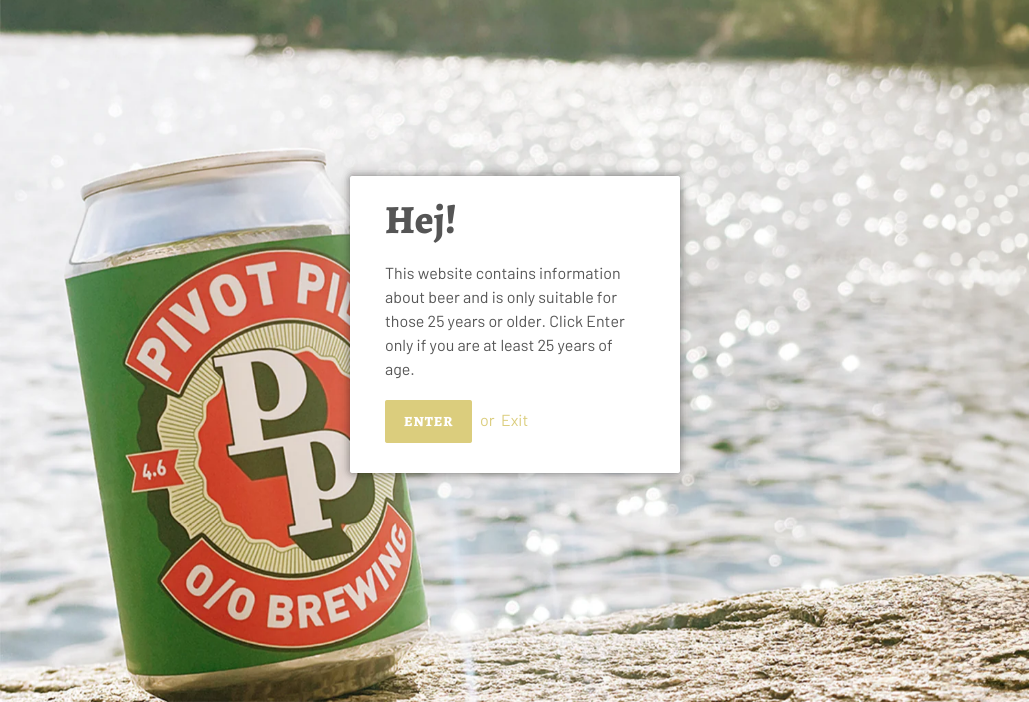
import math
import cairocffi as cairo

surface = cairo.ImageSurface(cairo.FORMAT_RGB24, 1029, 702)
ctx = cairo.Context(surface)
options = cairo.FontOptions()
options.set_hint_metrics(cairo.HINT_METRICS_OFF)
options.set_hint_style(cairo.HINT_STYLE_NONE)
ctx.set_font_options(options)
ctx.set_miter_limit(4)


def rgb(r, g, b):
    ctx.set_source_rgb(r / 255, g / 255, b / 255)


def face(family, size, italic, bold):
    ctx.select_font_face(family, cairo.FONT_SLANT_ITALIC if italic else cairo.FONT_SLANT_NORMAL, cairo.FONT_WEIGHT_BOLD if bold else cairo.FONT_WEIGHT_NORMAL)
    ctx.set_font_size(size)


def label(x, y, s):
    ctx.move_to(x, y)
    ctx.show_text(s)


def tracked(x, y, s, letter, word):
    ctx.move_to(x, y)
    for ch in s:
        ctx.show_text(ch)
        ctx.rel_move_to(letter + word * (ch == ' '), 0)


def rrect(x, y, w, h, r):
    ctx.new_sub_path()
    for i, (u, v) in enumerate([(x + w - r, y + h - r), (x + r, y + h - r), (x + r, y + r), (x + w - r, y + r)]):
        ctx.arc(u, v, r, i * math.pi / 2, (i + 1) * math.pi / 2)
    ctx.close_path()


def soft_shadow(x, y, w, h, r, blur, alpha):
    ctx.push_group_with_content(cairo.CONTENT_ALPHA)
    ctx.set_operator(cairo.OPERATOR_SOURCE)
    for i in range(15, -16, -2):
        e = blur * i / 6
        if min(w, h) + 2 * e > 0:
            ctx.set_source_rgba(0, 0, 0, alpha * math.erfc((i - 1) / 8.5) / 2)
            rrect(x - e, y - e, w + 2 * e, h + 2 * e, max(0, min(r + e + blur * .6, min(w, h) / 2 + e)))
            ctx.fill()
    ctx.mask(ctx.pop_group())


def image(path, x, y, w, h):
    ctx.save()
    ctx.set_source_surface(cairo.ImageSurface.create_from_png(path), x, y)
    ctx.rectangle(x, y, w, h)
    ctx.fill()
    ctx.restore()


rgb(255, 255, 255)
ctx.paint()
image('image0.png', 0, 0, 1029, 702)
rgb(0, 0, 0)
soft_shadow(350, 176, 330, 297, 2, 5, 0.5)
rgb(255, 255, 255)
rrect(350, 176, 330, 297, 2)
ctx.fill()
face('Alegreya ExtraBold', 40, 0, 0)
rgb(85, 85, 85)
label(385, 233, 'Hej!')
face('Barlow', 16, 0, 0)
label(385, 279, 'This website contains information')
label(385, 303, 'about beer and is only suitable for')
label(385, 327, 'those 25 years or older. Click Enter')
label(385, 351, 'only if you are at least 25 years of')
label(385, 375, 'age.')
rgb(219, 205, 125)
rrect(385, 400, 87, 43, 2)
ctx.fill()
face('Alegreya ExtraBold', 14, 0, 0)
rgb(255, 255, 255)
tracked(404, 426, 'ENTER', 1, 0)
face('Barlow', 16, 0, 0)
rgb(219, 205, 125)
label(480, 426, 'or')
label(501, 426, 'Exit')
surface.write_to_png('render.png')
